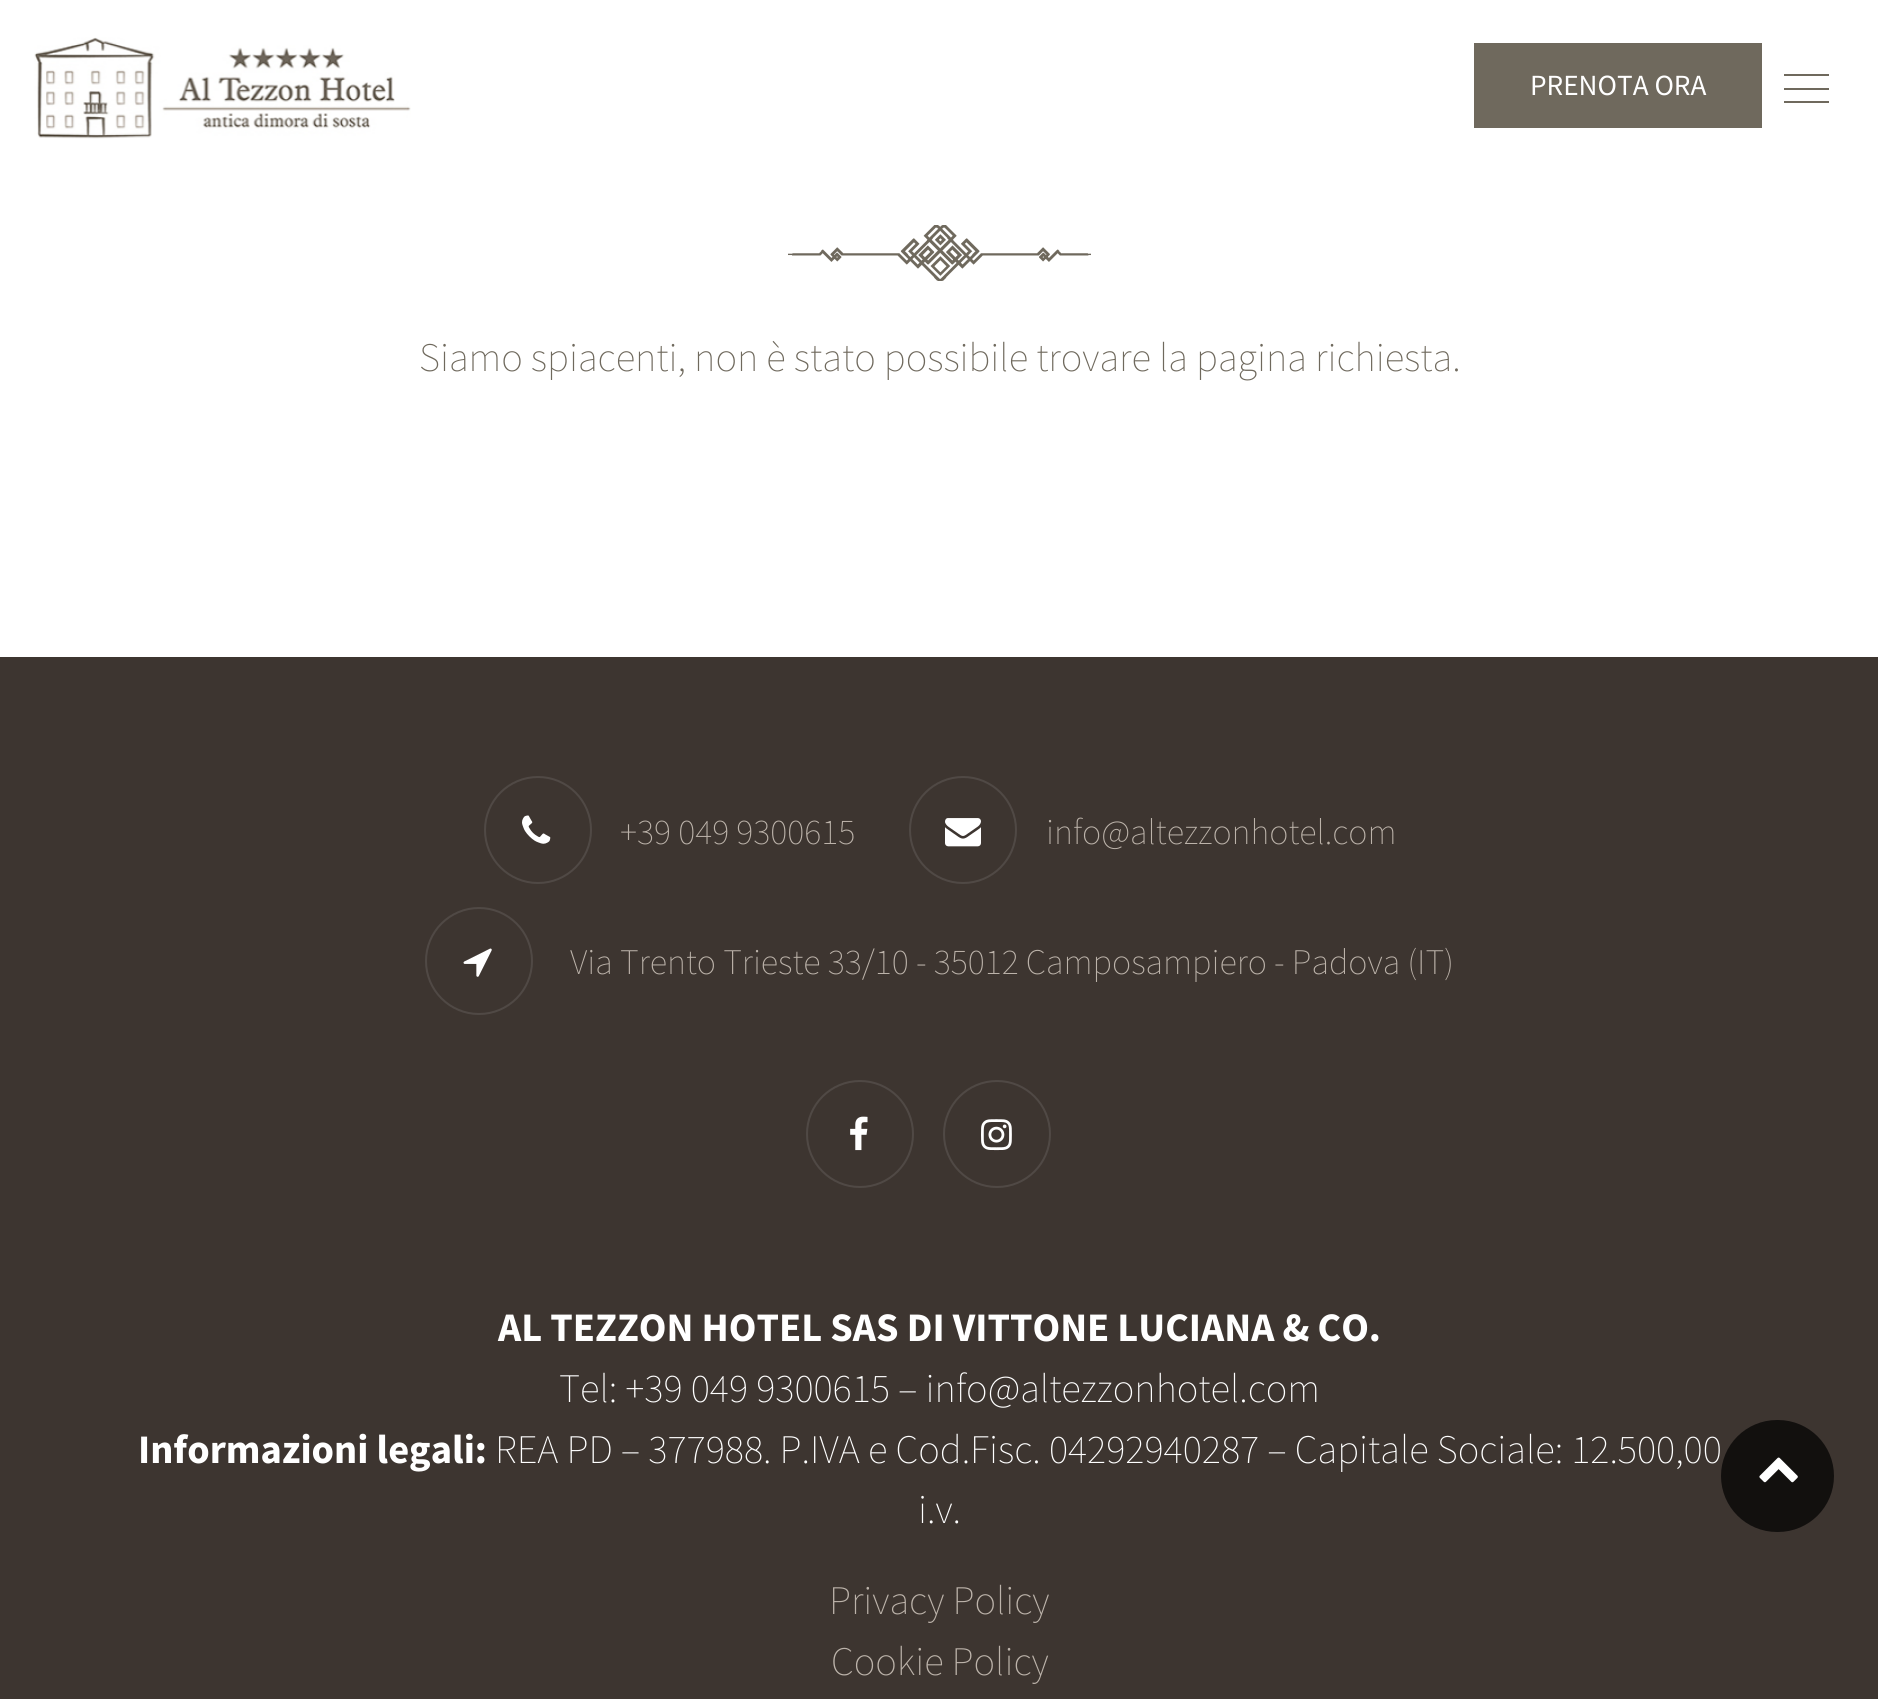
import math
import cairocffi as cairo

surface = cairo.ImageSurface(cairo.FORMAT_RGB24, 1878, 1699)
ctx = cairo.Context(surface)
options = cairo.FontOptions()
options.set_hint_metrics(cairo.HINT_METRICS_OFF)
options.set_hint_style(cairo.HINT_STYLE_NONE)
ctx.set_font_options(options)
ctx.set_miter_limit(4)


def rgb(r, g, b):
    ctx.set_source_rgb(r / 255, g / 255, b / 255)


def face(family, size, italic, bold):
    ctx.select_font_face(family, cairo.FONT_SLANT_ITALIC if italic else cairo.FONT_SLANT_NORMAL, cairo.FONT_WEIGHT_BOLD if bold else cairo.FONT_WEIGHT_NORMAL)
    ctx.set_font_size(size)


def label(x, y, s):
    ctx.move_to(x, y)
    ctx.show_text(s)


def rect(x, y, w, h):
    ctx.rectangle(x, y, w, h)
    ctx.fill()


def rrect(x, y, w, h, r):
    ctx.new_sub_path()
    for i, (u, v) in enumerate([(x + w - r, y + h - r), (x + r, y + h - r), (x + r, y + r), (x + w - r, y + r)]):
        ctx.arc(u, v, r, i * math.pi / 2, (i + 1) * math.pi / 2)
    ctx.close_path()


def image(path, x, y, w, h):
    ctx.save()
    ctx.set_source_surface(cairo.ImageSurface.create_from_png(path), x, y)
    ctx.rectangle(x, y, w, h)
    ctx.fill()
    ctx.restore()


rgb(255, 255, 255)
ctx.paint()
image('image0.png', 34, 37, 377, 102)
rgb(111, 105, 93)
rect(1474, 43, 288, 85)
face('Source Sans Pro', 29.25, 0, 0)
rgb(255, 255, 255)
label(1530, 95, 'PRENOTA ORA')
rgb(111, 105, 93)
rect(1784, 88, 45, 2)
rect(1784, 74, 45, 2)
rect(1784, 101, 45, 2)
image('image1.png', 788, 225, 303, 56)
face('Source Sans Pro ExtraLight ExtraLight', 40.5, 0, 0)
label(419, 371, 'Siamo spiacenti, non è stato possibile trovare la pagina richiesta.')
rgb(61, 53, 48)
rect(0, 657, 1878, 1042)
ctx.new_path()
ctx.arc(538, 830, 53, 0, 2 * math.pi)
rgb(80, 73, 69)
ctx.stroke()
image('image2.png', 522, 815, 29, 29)
face('Source Sans Pro ExtraLight ExtraLight', 36, 0, 0)
rgb(188, 179, 170)
label(620, 844, '+39 049 9300615')
ctx.new_path()
ctx.arc(963, 830, 53, 0, 2 * math.pi)
rgb(80, 73, 69)
ctx.stroke()
image('image3.png', 945, 818, 36, 29)
rgb(188, 179, 170)
label(1046, 844, 'info@altezzonhotel.com')
ctx.new_path()
ctx.arc(479, 961, 53, 0, 2 * math.pi)
rgb(80, 73, 69)
ctx.stroke()
image('image4.png', 463, 948, 29, 29)
rgb(188, 179, 170)
label(570, 974, 'Via Trento Trieste 33/10 - 35012 Camposampiero - Padova (IT)')
ctx.new_path()
ctx.arc(860, 1134, 53, 0, 2 * math.pi)
rgb(80, 73, 69)
ctx.stroke()
image('image5.png', 850, 1116, 18, 35)
ctx.arc(997, 1134, 53, 0, 2 * math.pi)
ctx.stroke()
image('image6.png', 981, 1119, 31, 32)
face('Source Sans Pro', 40.5, 0, 1)
rgb(255, 255, 255)
label(498, 1341, 'AL TEZZON HOTEL SAS DI VITTONE LUCIANA & CO.')
face('Source Sans Pro ExtraLight ExtraLight', 40.5, 0, 0)
label(559, 1402, 'Tel: +39 049 9300615 – info@altezzonhotel.com')
face('Source Sans Pro', 40.5, 0, 1)
label(138, 1463, 'Informazioni legali:')
face('Source Sans Pro ExtraLight ExtraLight', 40.5, 0, 0)
label(495, 1463, 'REA PD – 377988. P.IVA e Cod.Fisc. 04292940287 – Capitale Sociale: 12.500,00')
label(918, 1523, 'i.v.')
rgb(188, 179, 170)
label(829, 1614, 'Privacy Policy')
label(831, 1675, 'Cookie Policy')
ctx.set_source_rgba(0, 0, 0, 0.7)
rrect(1721, 1420, 113, 112, 56)
ctx.fill()
image('image7.png', 1759, 1457, 39, 26)
surface.write_to_png('render.png')
